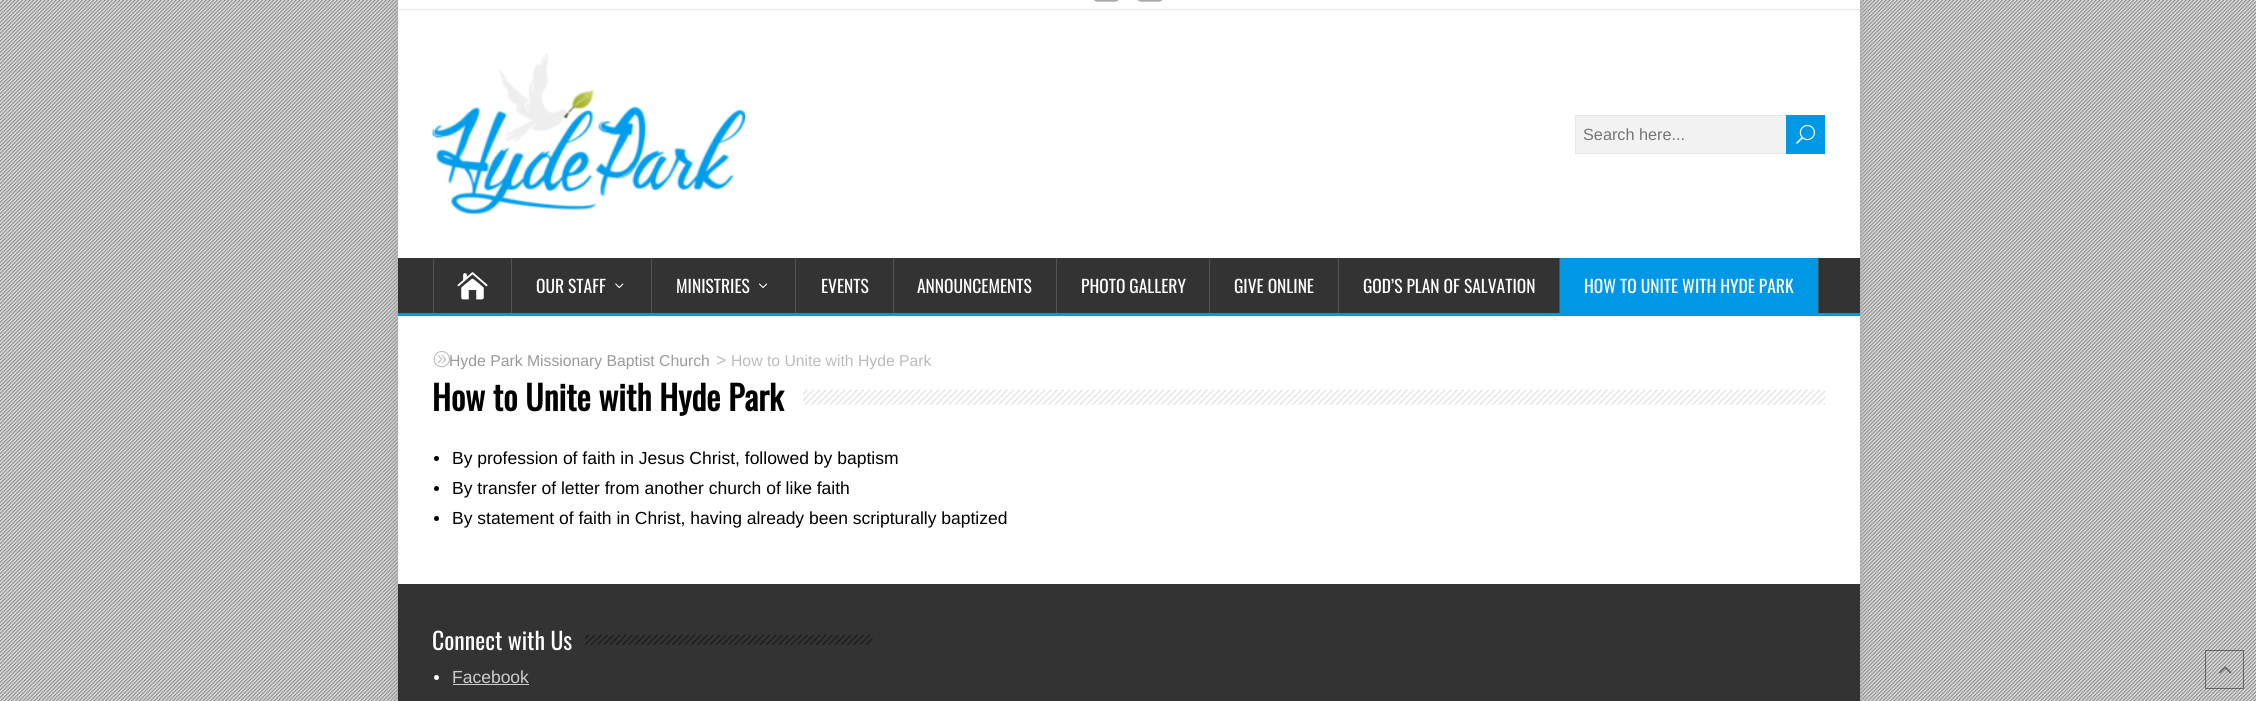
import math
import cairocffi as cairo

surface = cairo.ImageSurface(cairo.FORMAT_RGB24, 2256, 701)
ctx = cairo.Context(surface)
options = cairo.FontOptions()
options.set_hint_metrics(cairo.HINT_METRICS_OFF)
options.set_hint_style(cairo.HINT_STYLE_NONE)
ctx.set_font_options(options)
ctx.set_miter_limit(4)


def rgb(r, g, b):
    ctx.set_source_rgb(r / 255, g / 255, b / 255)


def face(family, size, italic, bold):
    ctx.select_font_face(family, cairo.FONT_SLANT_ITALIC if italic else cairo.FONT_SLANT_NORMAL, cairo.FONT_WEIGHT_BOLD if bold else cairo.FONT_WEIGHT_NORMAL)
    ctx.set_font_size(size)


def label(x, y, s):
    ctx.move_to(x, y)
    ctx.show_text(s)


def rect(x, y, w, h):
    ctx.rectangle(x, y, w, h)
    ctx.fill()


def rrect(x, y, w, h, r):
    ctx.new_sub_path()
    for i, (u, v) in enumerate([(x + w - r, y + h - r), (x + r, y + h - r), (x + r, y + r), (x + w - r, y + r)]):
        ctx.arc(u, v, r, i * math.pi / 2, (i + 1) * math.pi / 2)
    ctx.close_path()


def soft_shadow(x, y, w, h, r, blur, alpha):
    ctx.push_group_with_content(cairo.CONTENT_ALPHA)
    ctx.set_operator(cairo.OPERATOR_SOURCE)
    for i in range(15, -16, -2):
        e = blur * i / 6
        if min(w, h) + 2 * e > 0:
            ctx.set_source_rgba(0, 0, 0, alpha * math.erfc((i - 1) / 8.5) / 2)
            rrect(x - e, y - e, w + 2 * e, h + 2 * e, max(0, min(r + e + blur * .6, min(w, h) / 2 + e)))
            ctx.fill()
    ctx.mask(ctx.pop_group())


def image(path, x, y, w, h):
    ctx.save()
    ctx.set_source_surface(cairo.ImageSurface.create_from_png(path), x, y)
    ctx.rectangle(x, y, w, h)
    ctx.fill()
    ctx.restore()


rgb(222, 222, 222)
ctx.paint()
image('image0.png', 0, 0, 2256, 701)
rgb(170, 170, 170)
soft_shadow(398, -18, 1462, 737, 0, 6, 1)
rgb(255, 255, 255)
rect(398, 0, 1462, 584)
rgb(230, 230, 230)
rect(398, 9, 1462, 1)
image('image1.png', 1094, 0, 25, 2)
image('image2.png', 1137, 0, 26, 2)
image('image3.png', 432, 53, 313, 161)
rgb(242, 242, 242)
rect(1576, 116, 210, 37)
ctx.rectangle(1575.5, 115.5, 249, 38)
rgb(230, 230, 230)
ctx.set_line_width(1)
ctx.stroke()
face('Liberation Sans', 16.25, 0, 0)
rgb(117, 117, 117)
label(1583, 140, 'Search here...')
rgb(0, 152, 229)
rect(1786, 115, 39, 39)
image('image4.png', 1796, 124, 19, 20)
rgb(51, 51, 51)
rect(398, 258, 1462, 55)
rgb(0, 152, 229)
rect(398, 313, 1462, 3)
rgb(83, 83, 83)
rect(511, 258, 1, 55)
rect(433, 258, 1, 55)
image('image5.png', 457, 272, 31, 28)
rect(651, 258, 1, 55)
face('Oswald', 17.5, 0, 0)
rgb(255, 255, 255)
label(536, 293, 'OUR STAFF')
image('image6.png', 615, 283, 9, 6)
rgb(83, 83, 83)
rect(795, 258, 1, 55)
rgb(255, 255, 255)
label(676, 293, 'MINISTRIES')
image('image7.png', 759, 283, 9, 6)
rgb(83, 83, 83)
rect(893, 258, 1, 55)
rgb(255, 255, 255)
label(821, 293, 'EVENTS')
rgb(83, 83, 83)
rect(1056, 258, 1, 55)
rgb(255, 255, 255)
label(917, 293, 'ANNOUNCEMENTS')
rgb(83, 83, 83)
rect(1209, 258, 1, 55)
rgb(255, 255, 255)
label(1081, 293, 'PHOTO GALLERY')
rgb(83, 83, 83)
rect(1338, 258, 1, 55)
rgb(255, 255, 255)
label(1234, 293, 'GIVE ONLINE')
rgb(83, 83, 83)
rect(1559, 258, 1, 55)
rgb(255, 255, 255)
label(1363, 293, 'GOD’S PLAN OF SALVATION')
rgb(0, 152, 229)
rect(1560, 258, 258, 55)
rgb(83, 83, 83)
rect(1818, 258, 1, 55)
rgb(255, 255, 255)
label(1584, 293, 'HOW TO UNITE WITH HYDE PARK')
image('image8.png', 433, 351, 17, 17)
face('Liberation Sans', 15.75, 0, 0)
rgb(153, 153, 153)
label(449, 366, 'Hyde Park Missionary Baptist Church')
face('Liberation Sans', 17.5, 0, 0)
rgb(187, 187, 187)
label(716, 366, '>')
face('Liberation Sans', 15.75, 0, 0)
label(731, 366, 'How to Unite with Hyde Park')
image('image9.png', 432, 389, 1393, 16)
rgb(255, 255, 255)
rect(433, 389, 370, 16)
face('Oswald', 33.75, 0, 1)
rgb(0, 0, 0)
label(432, 411, 'How to Unite with Hyde Park')
ctx.new_path()
ctx.arc(436.5, 458.5, 2.5, 0, 2 * math.pi)
ctx.fill()
face('Liberation Sans', 17.5, 0, 0)
label(452, 464, 'By profession of faith in Jesus Christ, followed by baptism')
ctx.new_path()
ctx.arc(436.5, 488.5, 2.5, 0, 2 * math.pi)
ctx.fill()
label(452, 494, 'By transfer of letter from another church of like faith')
ctx.new_path()
ctx.arc(436.5, 518.5, 2.5, 0, 2 * math.pi)
ctx.fill()
label(452, 524, 'By statement of faith in Christ, having already been scripturally baptized')
rgb(51, 51, 51)
rect(398, 584, 1462, 117)
image('image10.png', 432, 634, 441, 11)
rect(433, 634, 152, 11)
face('Oswald', 23.75, 0, 0)
rgb(255, 255, 255)
label(432, 650, 'Connect with Us')
ctx.new_path()
ctx.arc(436.5, 677.5, 2.5, 0, 2 * math.pi)
ctx.fill()
face('Liberation Sans', 17.5, 0, 0)
rgb(204, 204, 204)
label(452, 683, 'Facebook')
rect(453, 684, 76, 1)
ctx.rectangle(2205.5, 650.5, 38, 38)
ctx.set_source_rgba(0.067, 0.067, 0.067, 0.5)
ctx.stroke()
image('image11.png', 2219, 666, 13, 8)
surface.write_to_png('render.png')
